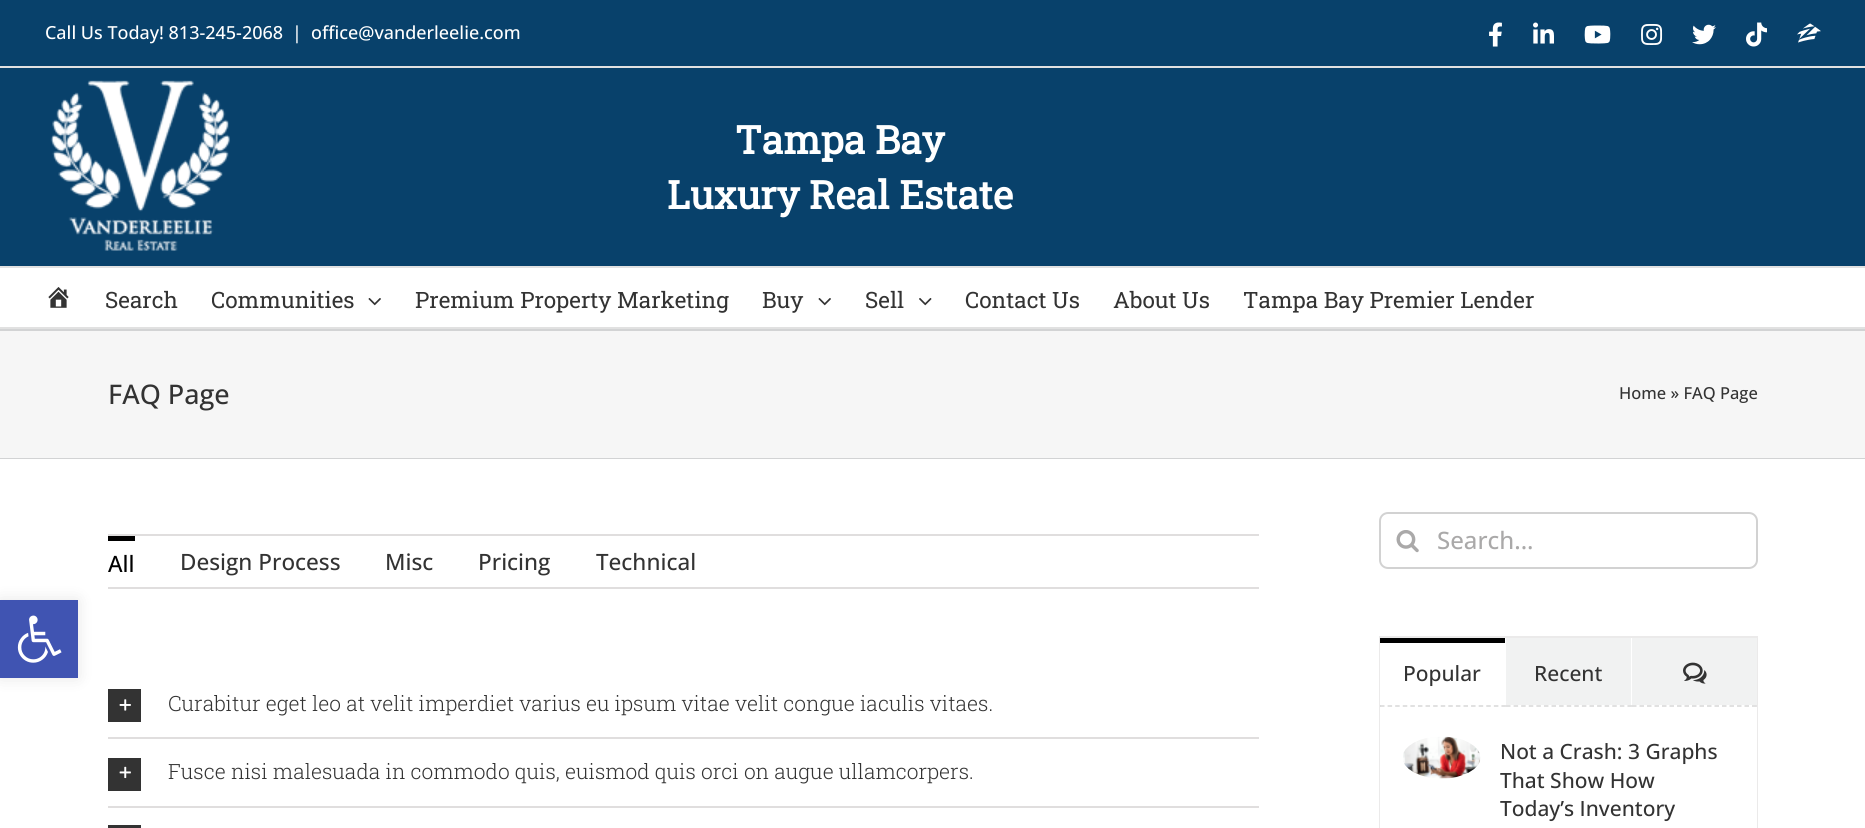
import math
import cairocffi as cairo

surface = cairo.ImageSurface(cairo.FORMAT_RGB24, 1865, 828)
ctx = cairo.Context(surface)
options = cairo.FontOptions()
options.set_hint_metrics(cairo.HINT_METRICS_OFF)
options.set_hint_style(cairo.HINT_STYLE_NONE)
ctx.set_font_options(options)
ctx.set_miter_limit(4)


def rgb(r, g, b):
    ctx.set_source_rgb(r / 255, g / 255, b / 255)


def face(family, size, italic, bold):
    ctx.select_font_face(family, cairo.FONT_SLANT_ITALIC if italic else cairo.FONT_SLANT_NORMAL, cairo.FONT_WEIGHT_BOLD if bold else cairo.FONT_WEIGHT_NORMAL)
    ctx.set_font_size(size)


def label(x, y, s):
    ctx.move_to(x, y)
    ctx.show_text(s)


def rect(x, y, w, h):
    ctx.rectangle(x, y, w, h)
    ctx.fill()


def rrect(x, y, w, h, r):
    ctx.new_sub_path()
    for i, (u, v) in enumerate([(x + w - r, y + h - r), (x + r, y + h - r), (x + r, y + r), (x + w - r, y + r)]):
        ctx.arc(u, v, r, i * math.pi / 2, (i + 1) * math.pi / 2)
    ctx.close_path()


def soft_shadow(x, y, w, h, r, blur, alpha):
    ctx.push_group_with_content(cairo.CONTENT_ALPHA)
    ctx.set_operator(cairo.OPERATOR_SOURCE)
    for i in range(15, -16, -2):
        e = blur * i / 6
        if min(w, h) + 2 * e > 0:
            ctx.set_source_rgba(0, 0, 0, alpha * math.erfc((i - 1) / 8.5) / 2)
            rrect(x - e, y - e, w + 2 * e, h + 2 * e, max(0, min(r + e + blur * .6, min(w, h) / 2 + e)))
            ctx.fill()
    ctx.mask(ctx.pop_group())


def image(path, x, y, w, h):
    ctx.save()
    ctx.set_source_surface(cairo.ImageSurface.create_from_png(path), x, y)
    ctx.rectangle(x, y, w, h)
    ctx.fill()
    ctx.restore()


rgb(255, 255, 255)
ctx.paint()
rgb(8, 65, 107)
rect(0, 0, 1865, 66)
rgb(225, 225, 225)
rect(0, 66, 1865, 2)
face('Open Sans Medium', 18, 0, 0)
rgb(255, 255, 255)
label(45, 39, 'Call Us Today! 813-245-2068')
label(292, 39, '|')
label(311, 39, 'office@vanderleelie.com')
image('image0.png', 1489, 22, 13, 25)
image('image1.png', 1533, 22, 21, 22)
image('image2.png', 1584, 25, 27, 19)
image('image3.png', 1641, 24, 22, 21)
image('image4.png', 1692, 24, 24, 21)
image('image5.png', 1746, 22, 21, 25)
image('image6.png', 1797, 23, 24, 20)
rgb(8, 65, 107)
rect(0, 68, 1865, 198)
rgb(225, 225, 225)
rect(0, 266, 1865, 2)
image('image7.png', 50, 80, 180, 171)
face('Roboto Slab', 39, 0, 1)
rgb(255, 255, 255)
label(735, 154, 'Tampa Bay')
label(667, 209, 'Luxury Real Estate')
rgb(225, 225, 225)
rect(0, 327, 1865, 2)
image('image8.png', 48, 287, 21, 21)
face('Roboto Slab', 22.5, 0, 0)
rgb(51, 51, 51)
label(105, 308, 'Search')
ctx.save()
ctx.rectangle(212, 267, 204, 60)
ctx.clip()
label(211, 308, 'Communities')
ctx.restore()
image('image9.png', 368, 298, 13, 8)
label(415, 308, 'Premium Property Marketing')
label(762, 308, 'Buy')
image('image9.png', 818, 298, 13, 8)
label(865, 308, 'Sell')
image('image10.png', 919, 298, 13, 8)
label(965, 308, 'Contact Us')
label(1113, 308, 'About Us')
label(1243, 308, 'Tampa Bay Premier Lender')
rgb(246, 246, 246)
rect(0, 331, 1865, 127)
rgb(210, 211, 212)
rect(0, 329, 1865, 2)
rect(0, 458, 1865, 1)
face('Open Sans Medium', 27, 0, 0)
rgb(51, 51, 51)
label(108, 404, 'FAQ Page')
face('Open Sans Medium', 16.5, 0, 0)
label(1619, 399, 'Home » FAQ Page')
rgb(224, 222, 222)
rect(108, 534, 1151, 2)
rect(108, 587, 1151, 2)
rgb(0, 0, 0)
rect(108, 536, 27, 5)
face('Open Sans Medium', 22.5, 0, 0)
label(108, 572, 'All')
rgb(51, 51, 51)
label(180, 570, 'Design Process')
label(385, 570, 'Misc')
label(478, 570, 'Pricing')
label(596, 570, 'Technical')
rgb(224, 222, 222)
rect(108, 737, 1151, 2)
rgb(51, 51, 51)
rect(108, 689, 33, 33)
image('image11.png', 119, 699, 12, 12)
face('Roboto Slab Light', 21, 0, 0)
label(168, 711, 'Curabitur eget leo at velit imperdiet varius eu ipsum vitae velit congue iaculis vitaes.')
rgb(224, 222, 222)
rect(108, 806, 1151, 2)
rgb(51, 51, 51)
rect(108, 758, 33, 33)
image('image12.png', 119, 766, 12, 13)
label(168, 779, 'Fusce nisi malesuada in commodo quis, euismod quis orci on augue ullamcorpers.')
rect(108, 825, 33, 3)
rrect(1380, 513, 377, 55, 8)
rgb(210, 210, 210)
ctx.stroke()
image('image13.png', 1396, 530, 23, 23)
face('Open Sans Medium', 24, 0, 0)
rgb(170, 169, 169)
label(1437, 549, 'Search...')
ctx.rectangle(1380, 637, 377, 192)
rgb(235, 234, 234)
ctx.stroke()
ctx.new_path()
ctx.move_to(1380, 706)
ctx.line_to(1506, 706)
rgb(215, 215, 215)
ctx.set_line_width(1.5)
ctx.set_dash([4.5, 3.09])
ctx.stroke()
rgb(255, 255, 255)
rect(1380, 643, 1, 62)
rgb(0, 0, 0)
rect(1380, 638, 125, 5)
face('Open Sans Medium', 21, 0, 0)
rgb(51, 51, 51)
label(1403, 681, 'Popular')
ctx.new_path()
ctx.move_to(1506, 706)
ctx.line_to(1632, 706)
rgb(215, 215, 215)
ctx.stroke()
rgb(241, 242, 242)
rect(1506, 638, 125, 67)
rgb(51, 51, 51)
label(1534, 681, 'Recent')
ctx.new_path()
ctx.move_to(1632, 706)
ctx.line_to(1756.5, 706)
rgb(215, 215, 215)
ctx.set_dash([4.5, 3])
ctx.stroke()
rgb(241, 242, 242)
rect(1632, 638, 125, 67)
image('image14.png', 1683, 662, 24, 22)
rgb(255, 255, 255)
rect(1380, 707, 377, 121)
image('image15.png', 1403, 736, 78, 43)
rgb(51, 51, 51)
label(1500, 759, 'Not a Crash: 3 Graphs')
label(1500, 788, 'That Show How')
label(1500, 816, 'Today’s Inventory')
rgb(0, 0, 0)
soft_shadow(0, 600, 78, 78, 0, 7.5, 0.1)
rgb(64, 84, 178)
rect(0, 600, 78, 78)
image('image16.png', 17, 615, 45, 48)
surface.write_to_png('render.png')
